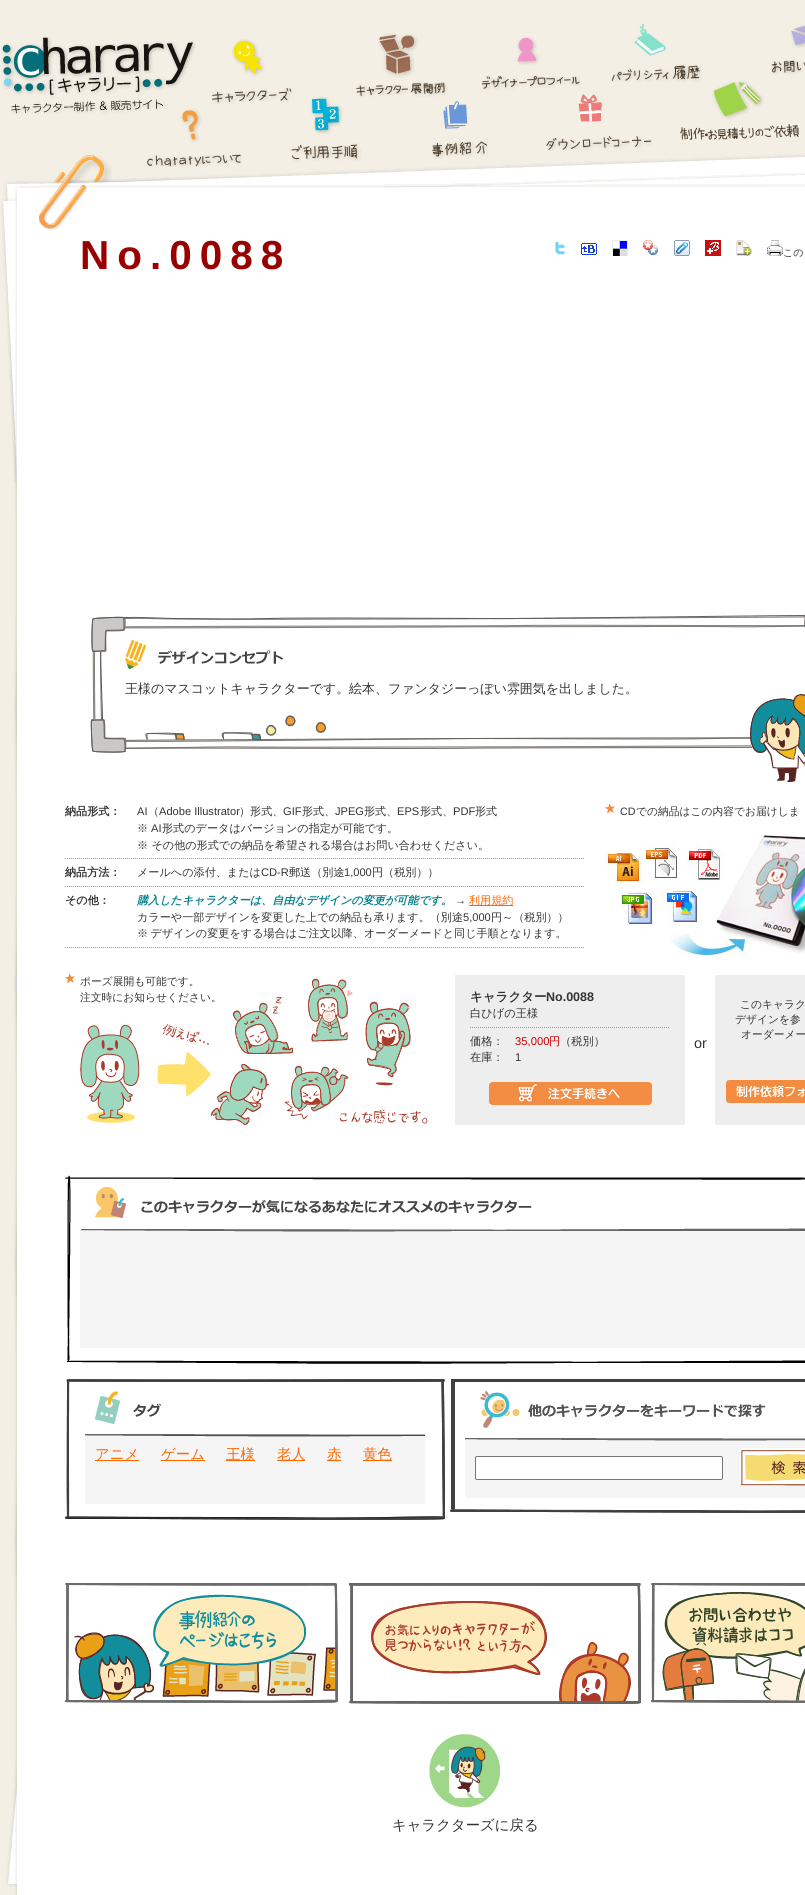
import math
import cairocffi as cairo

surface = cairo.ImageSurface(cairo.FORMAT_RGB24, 805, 1895)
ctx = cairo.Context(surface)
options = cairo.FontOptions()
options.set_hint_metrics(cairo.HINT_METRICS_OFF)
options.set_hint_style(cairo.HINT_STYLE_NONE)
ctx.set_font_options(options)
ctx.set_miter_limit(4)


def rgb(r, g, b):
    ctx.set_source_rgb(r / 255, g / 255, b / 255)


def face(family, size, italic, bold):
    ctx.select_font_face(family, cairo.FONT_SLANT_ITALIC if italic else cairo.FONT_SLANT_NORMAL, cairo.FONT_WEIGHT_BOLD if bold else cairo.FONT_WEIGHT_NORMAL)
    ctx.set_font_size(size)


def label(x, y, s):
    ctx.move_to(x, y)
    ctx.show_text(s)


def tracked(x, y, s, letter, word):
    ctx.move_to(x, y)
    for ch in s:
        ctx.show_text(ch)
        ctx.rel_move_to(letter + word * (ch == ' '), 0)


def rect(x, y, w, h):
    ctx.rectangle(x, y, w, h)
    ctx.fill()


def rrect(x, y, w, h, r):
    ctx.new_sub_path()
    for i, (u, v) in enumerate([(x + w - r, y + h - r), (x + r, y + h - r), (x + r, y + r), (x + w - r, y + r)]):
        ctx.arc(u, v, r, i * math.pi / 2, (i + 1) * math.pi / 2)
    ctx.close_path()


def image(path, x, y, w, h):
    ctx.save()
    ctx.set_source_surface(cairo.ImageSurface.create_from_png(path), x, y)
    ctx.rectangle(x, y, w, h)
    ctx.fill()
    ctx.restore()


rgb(243, 239, 228)
ctx.paint()
image('image0.png', 1, 36, 195, 78)
image('image11.png', 0, 150, 17, 1745)
image('image12.png', 1, 150, 804, 332)
image('image7.png', 290, 96, 72, 67)
image('image1.png', 212, 39, 81, 65)
image('image2.png', 356, 33, 92, 64)
image('image3.png', 482, 36, 99, 54)
image('image4.png', 611, 24, 91, 58)
image('image5.png', 771, 24, 34, 51)
image('image6.png', 147, 109, 95, 58)
image('image8.png', 432, 101, 56, 58)
image('image9.png', 546, 94, 106, 57)
image('image10.png', 680, 81, 119, 59)
rgb(255, 255, 255)
rect(17, 482, 788, 1413)
face('Liberation Sans', 40.5, 0, 1)
rgb(153, 0, 0)
tracked(80, 269, 'No.0088', 8, 0)
image('image13.png', 555, 241, 11, 14)
image('image14.png', 581, 243, 16, 12)
image('image15.png', 612, 240, 16, 16)
image('image16.png', 643, 240, 15, 15)
image('image17.png', 674, 240, 16, 16)
image('image18.png', 705, 240, 16, 16)
image('image19.png', 736, 240, 16, 16)
image('image20.png', 767, 240, 16, 16)
face('WenQuanYi Zen Hei Medium', 10, 0, 0)
rgb(51, 51, 51)
label(783, 256, 'この')
image('image21.png', 92, 652, 14, 71)
image('image23.png', 125, 640, 159, 29)
image('image22.png', 91, 595, 714, 57)
face('WenQuanYi Zen Hei Medium', 12.95, 0, 0)
label(125, 693, '王様のマスコットキャラクターです。絵本、ファンタジーっぽい雰囲気を出しました。')
image('image24.png', 90, 715, 678, 38)
image('image25.png', 750, 694, 55, 88)
face('WenQuanYi Zen Hei', 11.1, 0, 1)
label(65, 815, '納品形式：')
ctx.new_path()
ctx.move_to(65, 858.5)
ctx.line_to(585, 858.5)
rgb(153, 153, 153)
ctx.set_line_width(1)
ctx.set_dash([1, 1])
ctx.stroke()
face('Liberation Sans', 11.1, 0, 0)
rgb(51, 51, 51)
label(137, 815, 'AI')
face('WenQuanYi Zen Hei Medium', 11.1, 0, 0)
label(148, 815, '（')
face('Liberation Sans', 11.1, 0, 0)
label(159, 815, 'Adobe Illustrator')
face('WenQuanYi Zen Hei Medium', 11.1, 0, 0)
label(239, 815, '）形式、')
face('Liberation Sans', 11.1, 0, 0)
label(283, 815, 'GIF')
face('WenQuanYi Zen Hei Medium', 11.1, 0, 0)
label(302, 815, '形式、')
face('Liberation Sans', 11.1, 0, 0)
label(335, 815, 'JPEG')
face('WenQuanYi Zen Hei Medium', 11.1, 0, 0)
label(364, 815, '形式、')
face('Liberation Sans', 11.1, 0, 0)
label(397, 815, 'EPS')
face('WenQuanYi Zen Hei Medium', 11.1, 0, 0)
label(420, 815, '形式、')
face('Liberation Sans', 11.1, 0, 0)
label(453, 815, 'PDF')
face('WenQuanYi Zen Hei Medium', 11.1, 0, 0)
label(475, 815, '形式')
label(137, 832, '※')
face('Liberation Sans', 11.1, 0, 0)
label(151, 832, 'AI')
face('WenQuanYi Zen Hei Medium', 11.1, 0, 0)
label(162, 832, '形式のデータはバージョンの指定が可能です。')
label(137, 849, '※ その他の形式での納品を希望される場合はお問い合わせください。')
face('WenQuanYi Zen Hei', 11.1, 0, 1)
label(65, 876, '納品方法：')
ctx.new_path()
ctx.move_to(65, 886.5)
ctx.line_to(585, 886.5)
rgb(153, 153, 153)
ctx.stroke()
face('WenQuanYi Zen Hei Medium', 11.1, 0, 0)
rgb(51, 51, 51)
label(137, 876, 'メールへの添付、または')
face('Liberation Sans', 11.1, 0, 0)
label(261, 876, 'CD-R')
face('WenQuanYi Zen Hei Medium', 11.1, 0, 0)
label(289, 876, '郵送（別途')
face('Liberation Sans', 11.1, 0, 0)
label(344, 876, '1,000')
face('WenQuanYi Zen Hei Medium', 11.1, 0, 0)
label(372, 876, '円（税別））')
face('WenQuanYi Zen Hei', 11.1, 0, 1)
label(65, 904, 'その他：')
ctx.new_path()
ctx.move_to(65, 947.5)
ctx.line_to(585, 947.5)
rgb(153, 153, 153)
ctx.stroke()
face('WenQuanYi Zen Hei', 11.1, 1, 1)
rgb(4, 126, 140)
label(137, 904, '購入したキャラクターは、自由なデザインの変更が可能です。')
face('Liberation Sans', 11.1, 0, 0)
rgb(51, 51, 51)
label(455, 904, '→')
rgb(255, 102, 0)
rect(469, 905, 44, 1)
face('WenQuanYi Zen Hei Medium', 11.1, 0, 0)
label(469, 904, '利用規約')
rgb(51, 51, 51)
label(137, 921, 'カラーや一部デザインを変更した上での納品も承ります。（別途')
face('Liberation Sans', 11.1, 0, 0)
label(463, 921, '5,000')
face('WenQuanYi Zen Hei Medium', 11.1, 0, 0)
label(491, 921, '円～（税別））')
tracked(137, 937, '※ デザインの変更をする場合はご注文以降、オーダーメードと同じ手順となります。', 0, -1)
image('image26.png', 605, 803, 10, 11)
face('Liberation Sans', 10.75, 0, 0)
label(620, 815, 'CD')
face('WenQuanYi Zen Hei Medium', 10.75, 0, 0)
label(636, 815, 'での納品はこの内容でお届けしま')
image('image27.png', 605, 835, 200, 120)
image('image26.png', 65, 973, 10, 11)
image('image28.png', 80, 978, 348, 147)
label(80, 985, 'ポーズ展開も可能です。')
label(80, 1001, '注文時にお知らせください。')
rgb(238, 238, 238)
rect(455, 975, 230, 150)
face('WenQuanYi Zen Hei', 12.5, 0, 1)
rgb(51, 51, 51)
label(470, 1001, 'キャラクター')
face('Liberation Sans', 12.5, 0, 1)
label(546, 1001, 'No.0088')
face('WenQuanYi Zen Hei Medium', 11.25, 0, 0)
label(470, 1017, '白ひげの王様')
ctx.new_path()
ctx.move_to(470, 1027.5)
ctx.line_to(670, 1027.5)
rgb(153, 153, 153)
ctx.stroke()
rgb(51, 51, 51)
label(470, 1045, '価格：')
face('Liberation Sans', 11.25, 0, 0)
rgb(204, 0, 0)
label(515, 1045, '35,000')
face('WenQuanYi Zen Hei Medium', 11.25, 0, 0)
label(549, 1045, '円')
rgb(51, 51, 51)
label(560, 1045, '（税別）')
label(470, 1061, '在庫：')
face('Liberation Sans', 11.25, 0, 0)
label(515, 1061, '1')
image('image29.png', 489, 1082, 163, 23)
rgb(238, 238, 238)
rect(715, 975, 90, 150)
face('WenQuanYi Zen Hei Medium', 10.75, 0, 0)
rgb(51, 51, 51)
label(740, 1008, 'このキャラク')
label(735, 1023, 'デザインを参')
label(741, 1038, 'オーダーメー')
image('image30.png', 726, 1080, 79, 23)
face('Liberation Sans', 14.4, 0, 0)
label(694, 1048, 'or')
image('image31.png', 67, 1180, 4, 180)
image('image32.png', 65, 1175, 740, 5)
image('image33.png', 95, 1187, 451, 31)
rgb(245, 245, 245)
rect(80, 1228, 725, 120)
image('image34.png', 81, 1228, 724, 4)
image('image35.png', 67, 1360, 738, 4)
image('image36.png', 66, 1382, 379, 134)
image('image37.png', 66, 1379, 379, 3)
image('image38.png', 95, 1391, 66, 33)
rect(85, 1437, 340, 67)
image('image39.png', 85, 1434, 340, 3)
rgb(255, 102, 0)
rect(95, 1460, 44, 1)
face('WenQuanYi Zen Hei Medium', 14.4, 0, 0)
label(95, 1459, 'アニメ')
rect(161, 1460, 44, 1)
label(161, 1459, 'ゲーム')
rect(226, 1460, 29, 1)
label(226, 1459, '王様')
rect(277, 1460, 28, 1)
label(277, 1459, '老人')
rect(327, 1460, 14, 1)
label(327, 1459, '赤')
rect(363, 1460, 29, 1)
label(363, 1459, '黄色')
image('image40.png', 65, 1516, 380, 4)
rgb(64, 64, 64)
rect(451, 1379, 4, 134)
rect(451, 1379, 354, 3)
image('image41.png', 480, 1391, 286, 37)
rgb(245, 245, 245)
rect(465, 1441, 340, 57)
image('image42.png', 465, 1438, 340, 3)
rgb(255, 255, 255)
rrect(475.5, 1456.5, 247, 23, 1.5)
ctx.fill_preserve()
rgb(118, 118, 118)
ctx.set_dash([])
ctx.stroke()
image('image43.png', 740, 1448, 65, 38)
image('image44.png', 450, 1509, 355, 4)
image('image45.png', 6, 1725, 11, 170)
image('image46.png', 65, 1583, 274, 120)
image('image47.png', 349, 1583, 292, 121)
image('image48.png', 651, 1583, 154, 120)
image('image49.png', 429, 1734, 72, 74)
rgb(51, 51, 51)
label(392, 1830, 'キャラクターズに戻る')
surface.write_to_png('render.png')
